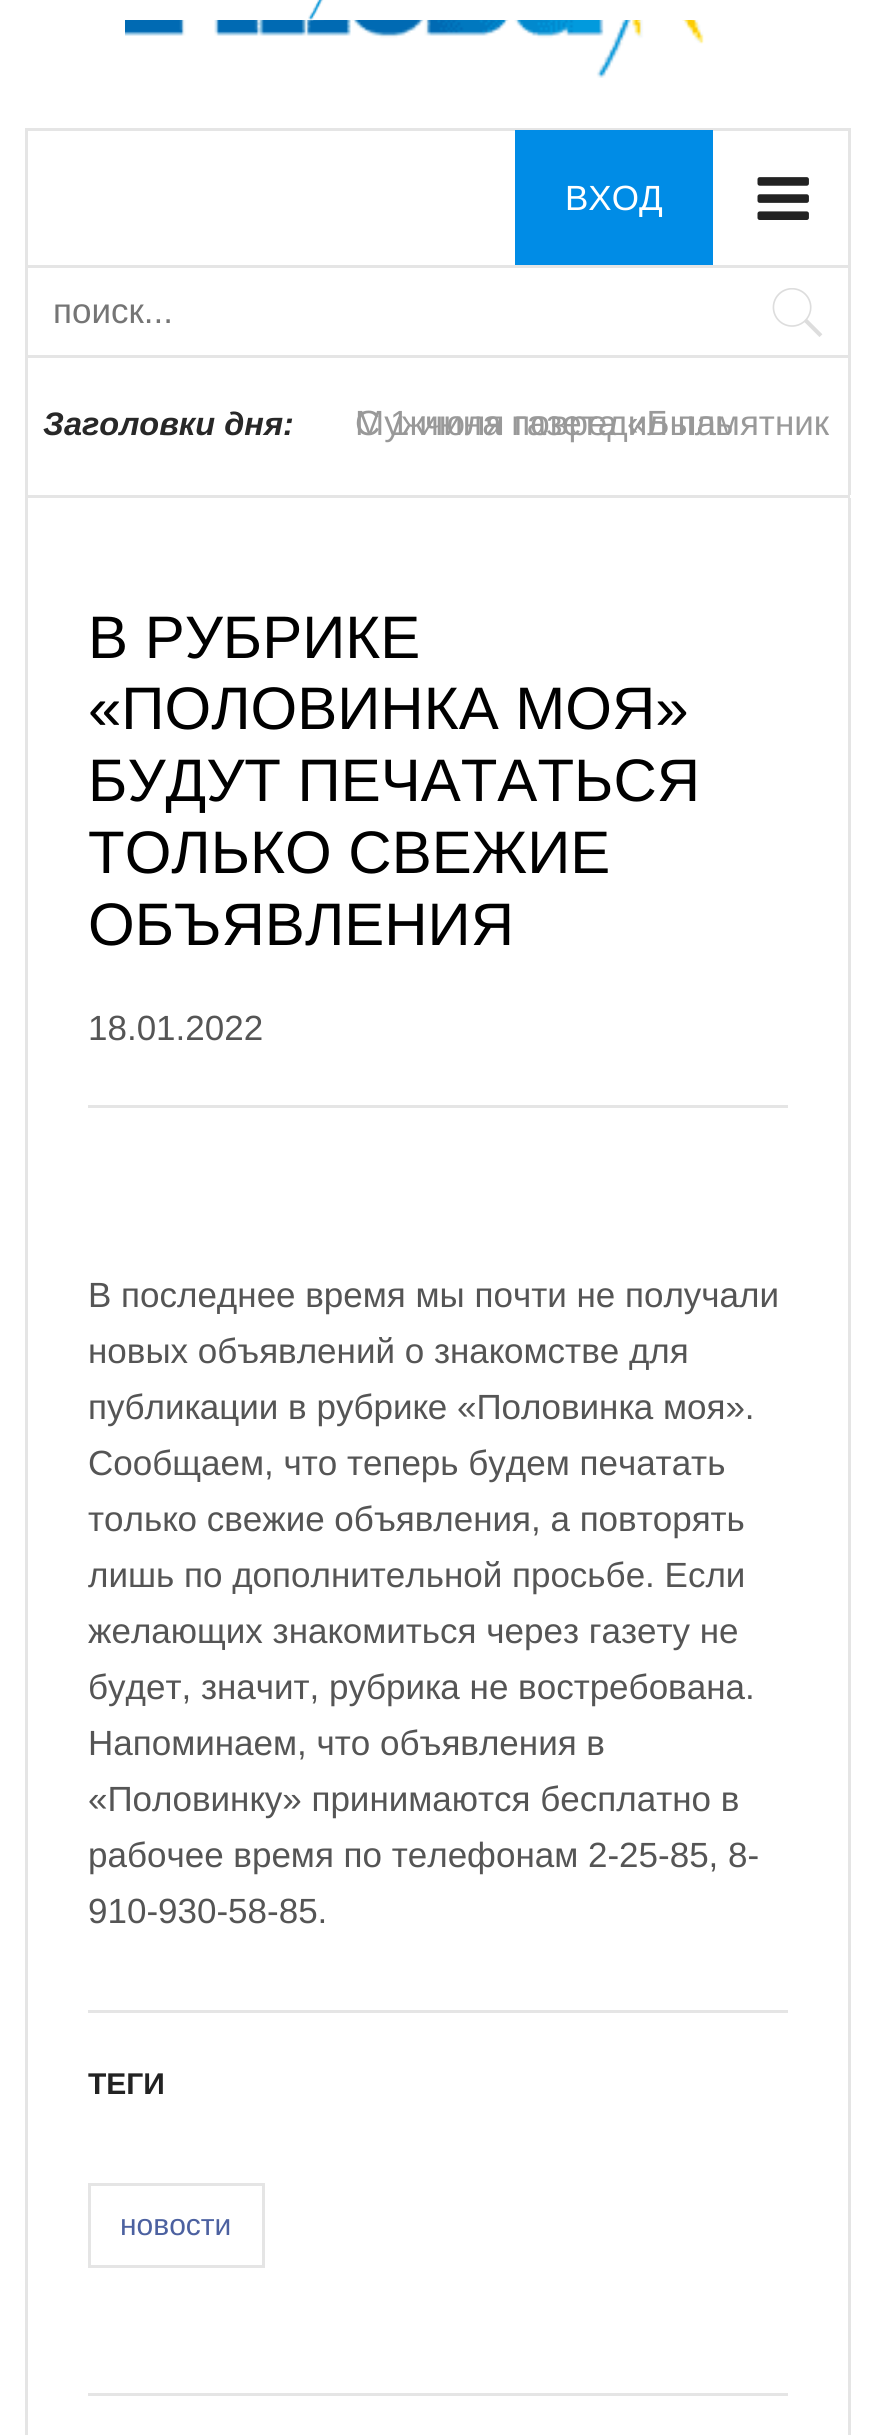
import math
import cairocffi as cairo

surface = cairo.ImageSurface(cairo.FORMAT_RGB24, 874, 2435)
ctx = cairo.Context(surface)
options = cairo.FontOptions()
options.set_hint_metrics(cairo.HINT_METRICS_OFF)
options.set_hint_style(cairo.HINT_STYLE_NONE)
ctx.set_font_options(options)
ctx.set_miter_limit(4)


def rgb(r, g, b):
    ctx.set_source_rgb(r / 255, g / 255, b / 255)


def face(family, size, italic, bold):
    ctx.select_font_face(family, cairo.FONT_SLANT_ITALIC if italic else cairo.FONT_SLANT_NORMAL, cairo.FONT_WEIGHT_BOLD if bold else cairo.FONT_WEIGHT_NORMAL)
    ctx.set_font_size(size)


def label(x, y, s):
    ctx.move_to(x, y)
    ctx.show_text(s)


def rect(x, y, w, h):
    ctx.rectangle(x, y, w, h)
    ctx.fill()


def image(path, x, y, w, h):
    ctx.save()
    ctx.set_source_surface(cairo.ImageSurface.create_from_png(path), x, y)
    ctx.rectangle(x, y, w, h)
    ctx.fill()
    ctx.restore()


rgb(255, 255, 255)
ctx.paint()
image('image1.png', 125, 20, 579, 58)
image('image0.png', 308, 0, 16, 21)
rgb(229, 229, 229)
rect(25, 495, 825, 3)
rect(25, 128, 825, 3)
rect(848, 128, 3, 137)
rect(25, 128, 3, 137)
rgb(0, 140, 230)
rect(515, 130, 198, 135)
face('Liberation Sans', 35, 0, 0)
rgb(255, 255, 255)
label(565, 210, 'ВХОД')
image('image2.png', 757, 177, 52, 43)
rgb(229, 229, 229)
rect(25, 265, 825, 3)
rect(848, 265, 3, 230)
rect(25, 265, 3, 230)
rect(28, 355, 820, 3)
rgb(117, 117, 117)
label(53, 323, 'поиск...')
image('image3.png', 772, 288, 51, 49)
face('Liberation Sans', 32.5, 1, 1)
rgb(40, 40, 40)
label(43, 435, 'Заголовки дня:')
face('Liberation Sans', 35, 0, 0)
rgb(153, 153, 153)
label(355, 435, 'С 1 июля газета «Быль')
label(355, 435, 'Мужчина повредил памятник')
rgb(229, 229, 229)
rect(848, 498, 3, 1937)
rect(25, 498, 3, 1937)
rect(88, 1105, 700, 3)
face('Liberation Sans', 60, 0, 0)
rgb(0, 0, 0)
label(88, 658, 'В РУБРИКЕ')
label(88, 729, '«ПОЛОВИНКА МОЯ»')
label(88, 801, 'БУДУТ ПЕЧАТАТЬСЯ')
label(88, 873, 'ТОЛЬКО СВЕЖИЕ')
label(88, 945, 'ОБЪЯВЛЕНИЯ')
face('Liberation Sans', 35, 0, 0)
rgb(85, 85, 85)
label(88, 1040, '18.01.2022')
label(88, 1307, 'В последнее время мы почти не получали')
label(88, 1363, 'новых объявлений о знакомстве для')
label(88, 1419, 'публикации в рубрике «Половинка моя».')
label(88, 1475, 'Сообщаем, что теперь будем печатать')
label(88, 1531, 'только свежие объявления, а повторять')
label(88, 1587, 'лишь по дополнительной просьбе. Если')
label(88, 1643, 'желающих знакомиться через газету не')
label(88, 1699, 'будет, значит, рубрика не востребована.')
label(88, 1755, 'Напоминаем, что объявления в')
label(88, 1811, '«Половинку» принимаются бесплатно в')
label(88, 1867, 'рабочее время по телефонам 2-25-85, 8-')
label(88, 1923, '910-930-58-85.')
rgb(229, 229, 229)
rect(88, 2010, 700, 3)
ctx.save()
ctx.rectangle(88, 2063, 700, 205)
ctx.clip()
face('Liberation Sans', 30, 0, 1)
rgb(34, 34, 34)
label(88, 2094, 'ТЕГИ')
ctx.restore()
ctx.rectangle(89.5, 2184.5, 174, 82)
ctx.set_line_width(3)
ctx.stroke()
face('Liberation Sans', 30, 0, 0)
rgb(76, 97, 160)
label(120, 2235, 'новости')
rgb(229, 229, 229)
rect(88, 2393, 700, 3)
surface.write_to_png('render.png')
